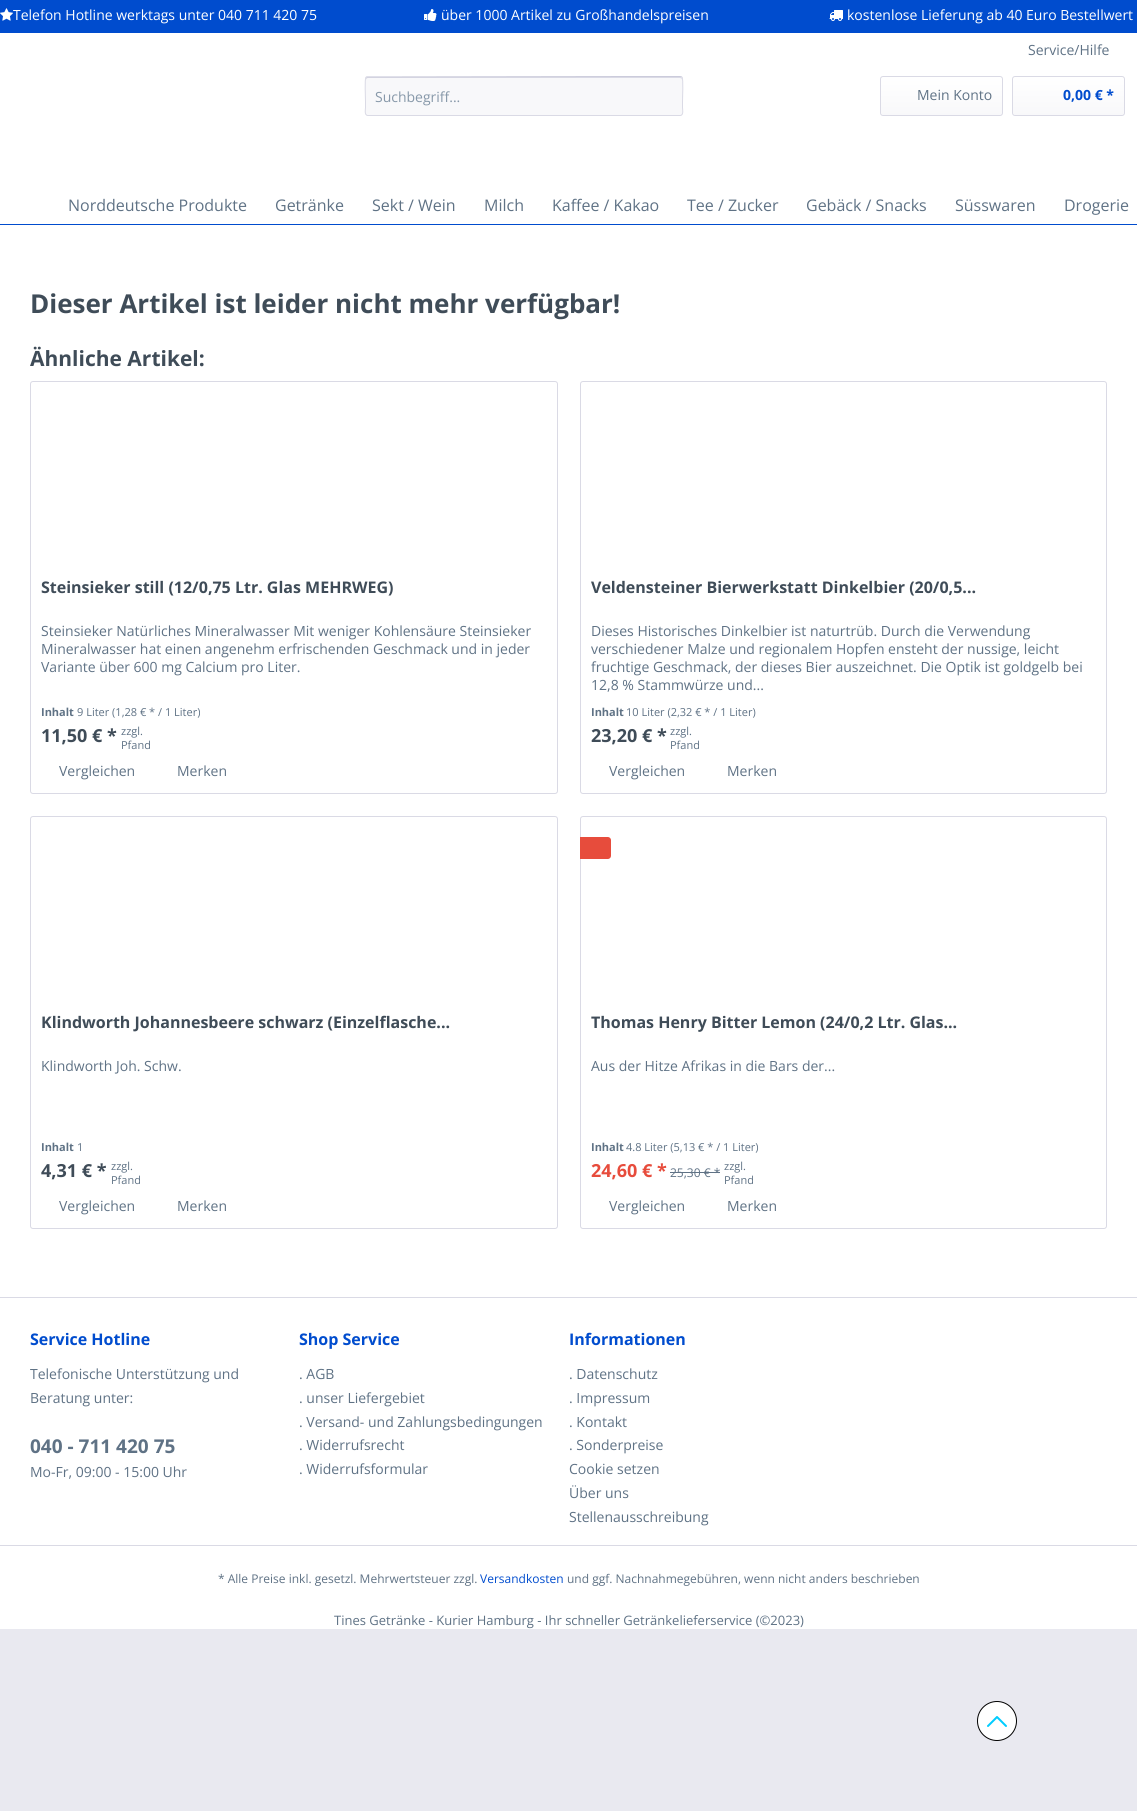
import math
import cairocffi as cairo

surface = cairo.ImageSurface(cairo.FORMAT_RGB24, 1137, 1811)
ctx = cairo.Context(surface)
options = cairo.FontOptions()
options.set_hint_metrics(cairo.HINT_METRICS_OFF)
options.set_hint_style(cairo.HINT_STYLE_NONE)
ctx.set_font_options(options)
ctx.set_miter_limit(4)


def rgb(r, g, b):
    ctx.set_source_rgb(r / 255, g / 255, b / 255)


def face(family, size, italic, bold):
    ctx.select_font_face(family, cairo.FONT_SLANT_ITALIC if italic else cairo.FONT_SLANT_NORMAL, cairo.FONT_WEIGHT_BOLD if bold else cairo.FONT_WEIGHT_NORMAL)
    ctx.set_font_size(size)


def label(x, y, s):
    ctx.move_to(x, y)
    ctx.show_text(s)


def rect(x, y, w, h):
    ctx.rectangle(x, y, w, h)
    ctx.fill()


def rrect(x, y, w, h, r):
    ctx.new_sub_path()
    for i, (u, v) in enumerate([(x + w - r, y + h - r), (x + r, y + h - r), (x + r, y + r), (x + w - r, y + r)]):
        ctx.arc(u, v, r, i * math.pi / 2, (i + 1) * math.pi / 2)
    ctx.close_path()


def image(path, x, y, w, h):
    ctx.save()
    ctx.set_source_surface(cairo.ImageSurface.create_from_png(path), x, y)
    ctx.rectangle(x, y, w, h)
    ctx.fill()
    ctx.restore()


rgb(233, 233, 240)
ctx.paint()
rgb(255, 255, 255)
rect(0, 33, 1137, 191)
rgb(0, 76, 206)
rect(0, 0, 1137, 33)
image('image0.png', 0, 8, 13, 13)
face('Open Sans', 14, 0, 0)
rgb(255, 255, 255)
label(13, 20, 'Telefon Hotline werktags unter 040 711 420 75')
image('image1.png', 424, 9, 13, 12)
label(441, 20, 'über 1000 Artikel zu Großhandelspreisen')
image('image2.png', 829, 10, 14, 11)
label(847, 20, 'kostenlose Lieferung ab 40 Euro Bestellwert')
rgb(95, 114, 133)
label(1028, 55, 'Service/Hilfe')
rgb(248, 248, 250)
rrect(365, 76, 318, 40, 3)
ctx.fill()
rgb(218, 218, 229)
ctx.new_path()
ctx.move_to(368, 78)
ctx.line_to(680, 78)
ctx.curve_to(681, 78, 682, 79, 682, 80)
ctx.curve_to(682, 79, 682, 77, 680, 77)
ctx.line_to(367, 77)
ctx.line_to(366, 78)
ctx.line_to(366, 80)
ctx.curve_to(366, 79, 367, 78, 368, 78)
ctx.close_path()
ctx.fill()
ctx.new_path()
ctx.move_to(366, 77)
ctx.line_to(367, 77)
ctx.line_to(628, 76.5)
ctx.line_to(680, 76.5)
ctx.line_to(682, 77)
rgb(203, 203, 219)
ctx.set_line_width(1)
ctx.stroke()
ctx.new_path()
ctx.move_to(682, 77)
ctx.curve_to(683.5, 79, 682.5, 98, 682.5, 101.5)
ctx.line_to(682.5, 107.5)
ctx.curve_to(682.5, 109, 684, 115.5, 680, 115.5)
ctx.line_to(368, 115.5)
ctx.curve_to(364, 115.5, 365.5, 109, 365.5, 107.5)
ctx.line_to(365.5, 101.5)
ctx.curve_to(365.5, 98, 364.5, 79, 366, 77)
rgb(218, 218, 229)
ctx.stroke()
rgb(135, 152, 169)
label(375, 102, 'Suchbegriff...')
gradient = cairo.LinearGradient(942, 77, 942, 115)
gradient.add_color_stop_rgba(0, 1, 1, 1, 1)
gradient.add_color_stop_rgba(1, 0.973, 0.973, 0.98, 1)
ctx.set_source(gradient)
rrect(881, 77, 121, 38, 2)
ctx.fill()
rrect(880.5, 76.5, 122, 39, 2.5)
rgb(218, 218, 229)
ctx.stroke()
rgb(95, 114, 133)
label(917, 100, 'Mein Konto')
gradient = cairo.LinearGradient(1069, 77, 1069, 115)
gradient.add_color_stop_rgba(0, 1, 1, 1, 1)
gradient.add_color_stop_rgba(1, 0.973, 0.973, 0.98, 1)
ctx.set_source(gradient)
rrect(1013, 77, 111, 38, 2)
ctx.fill()
rrect(1012.5, 76.5, 112, 39, 2.5)
rgb(218, 218, 229)
ctx.stroke()
face('Open Sans', 14, 0, 1)
rgb(0, 76, 206)
label(1063, 100, '0,00 € *')
rect(0, 224, 1137, 1)
face('Open Sans', 16, 0, 0)
rgb(95, 114, 133)
label(68, 211, 'Norddeutsche Produkte')
label(275, 211, 'Getränke')
label(372, 211, 'Sekt / Wein')
label(484, 211, 'Milch')
label(552, 211, 'Kaffee / Kakao')
label(687, 211, 'Tee / Zucker')
label(806, 211, 'Gebäck / Snacks')
label(955, 211, 'Süsswaren')
label(1064, 211, 'Drogerie')
rgb(255, 255, 255)
rect(0, 225, 1137, 1072)
face('Open Sans', 26, 0, 1)
rgb(63, 76, 88)
label(30, 313, 'Dieser Artikel ist leider nicht mehr verfügbar!')
face('Open Sans', 21, 0, 1)
label(30, 366, 'Ähnliche Artikel:')
rrect(30.5, 381.5, 527, 412, 2.5)
rgb(218, 218, 229)
ctx.stroke()
face('Open Sans', 16, 0, 1)
rgb(63, 76, 88)
label(41, 593, 'Steinsieker still (12/0,75 Ltr. Glas MEHRWEG)')
face('Open Sans', 14, 0, 0)
rgb(95, 114, 133)
label(41, 636, 'Steinsieker Natürliches Mineralwasser Mit weniger Kohlensäure Steinsieker')
label(41, 654, 'Mineralwasser hat einen angenehm erfrischenden Geschmack und in jeder')
label(41, 672, 'Variante über 600 mg Calcium pro Liter.')
face('Open Sans', 11, 0, 1)
label(41, 716, 'Inhalt')
face('Open Sans', 11, 0, 0)
label(77, 716, '9 Liter (1,28 € * / 1 Liter)')
face('Open Sans', 18, 0, 1)
rgb(63, 76, 88)
label(41, 742, '11,50 € *')
face('Open Sans', 11, 0, 0)
rgb(95, 114, 133)
label(121, 735, 'zzgl.')
label(121, 749, 'Pfand')
face('Open Sans', 14, 0, 0)
label(59, 776, 'Vergleichen')
label(177, 776, 'Merken')
rrect(580.5, 381.5, 526, 412, 2.5)
rgb(218, 218, 229)
ctx.stroke()
face('Open Sans', 16, 0, 1)
rgb(63, 76, 88)
label(591, 593, 'Veldensteiner Bierwerkstatt Dinkelbier (20/0,5...')
face('Open Sans', 14, 0, 0)
rgb(95, 114, 133)
label(591, 636, 'Dieses Historisches Dinkelbier ist naturtrüb. Durch die Verwendung')
label(591, 654, 'verschiedener Malze und regionalem Hopfen ensteht der nussige, leicht')
label(591, 672, 'fruchtige Geschmack, der dieses Bier auszeichnet. Die Optik ist goldgelb bei')
label(591, 690, '12,8 % Stammwürze und...')
face('Open Sans', 11, 0, 1)
label(591, 716, 'Inhalt')
face('Open Sans', 11, 0, 0)
label(626, 716, '10 Liter (2,32 € * / 1 Liter)')
face('Open Sans', 18, 0, 1)
rgb(63, 76, 88)
label(591, 742, '23,20 € *')
face('Open Sans', 11, 0, 0)
rgb(95, 114, 133)
label(670, 735, 'zzgl.')
label(670, 749, 'Pfand')
face('Open Sans', 14, 0, 0)
label(609, 776, 'Vergleichen')
label(727, 776, 'Merken')
rrect(30.5, 816.5, 527, 412, 2.5)
rgb(218, 218, 229)
ctx.stroke()
face('Open Sans', 16, 0, 1)
rgb(63, 76, 88)
label(41, 1028, 'Klindworth Johannesbeere schwarz (Einzelflasche...')
face('Open Sans', 14, 0, 0)
rgb(95, 114, 133)
label(41, 1071, 'Klindworth Joh. Schw.')
face('Open Sans', 11, 0, 1)
label(41, 1151, 'Inhalt')
face('Open Sans', 11, 0, 0)
label(77, 1151, '1')
face('Open Sans', 18, 0, 1)
rgb(63, 76, 88)
label(41, 1177, '4,31 € *')
face('Open Sans', 11, 0, 0)
rgb(95, 114, 133)
label(111, 1170, 'zzgl.')
label(111, 1184, 'Pfand')
face('Open Sans', 14, 0, 0)
label(59, 1211, 'Vergleichen')
label(177, 1211, 'Merken')
rrect(580.5, 816.5, 526, 412, 2.5)
rgb(218, 218, 229)
ctx.stroke()
rgb(231, 76, 60)
ctx.new_path()
ctx.move_to(580, 837)
ctx.line_to(608, 837)
ctx.curve_to(609.5, 837, 611, 838.5, 611, 840)
ctx.line_to(611, 856)
ctx.curve_to(611, 857.5, 609.5, 859, 608, 859)
ctx.line_to(580, 859)
ctx.close_path()
ctx.fill()
face('Open Sans', 16, 0, 1)
rgb(63, 76, 88)
label(591, 1028, 'Thomas Henry Bitter Lemon (24/0,2 Ltr. Glas...')
face('Open Sans', 14, 0, 0)
rgb(95, 114, 133)
label(591, 1071, 'Aus der Hitze Afrikas in die Bars der...')
face('Open Sans', 11, 0, 1)
label(591, 1151, 'Inhalt')
face('Open Sans', 11, 0, 0)
label(626, 1151, '4.8 Liter (5,13 € * / 1 Liter)')
face('Open Sans', 18, 0, 1)
rgb(231, 76, 60)
label(591, 1177, '24,60 € *')
face('Open Sans', 12, 0, 0)
rgb(95, 114, 133)
label(670, 1177, '25,30 € *')
rect(670, 1172, 50, 1)
face('Open Sans', 11, 0, 0)
label(724, 1170, 'zzgl.')
label(724, 1184, 'Pfand')
face('Open Sans', 14, 0, 0)
label(609, 1211, 'Vergleichen')
label(727, 1211, 'Merken')
rgb(255, 255, 255)
rect(0, 1298, 1137, 331)
rgb(218, 218, 229)
rect(0, 1297, 1137, 1)
rect(0, 1545, 1137, 1)
face('Open Sans', 16, 0, 1)
rgb(0, 76, 206)
label(30, 1345, 'Service Hotline')
face('Open Sans', 14, 0, 0)
rgb(95, 114, 133)
label(30, 1379, 'Telefonische Unterstützung und')
label(30, 1403, 'Beratung unter:')
face('Open Sans', 19, 0, 1)
label(30, 1453, '040 - 711 420 75')
face('Open Sans', 14, 0, 0)
label(30, 1477, 'Mo-Fr, 09:00 - 15:00 Uhr')
face('Open Sans', 16, 0, 1)
rgb(0, 76, 206)
label(299, 1345, 'Shop Service')
face('Open Sans', 14, 0, 0)
rgb(95, 114, 133)
label(299, 1379, '. AGB')
label(299, 1403, '. unser Liefergebiet')
label(299, 1427, '. Versand- und Zahlungsbedingungen')
label(299, 1450, '. Widerrufsrecht')
label(299, 1474, '. Widerrufsformular')
face('Open Sans', 16, 0, 1)
rgb(0, 76, 206)
label(569, 1345, 'Informationen')
face('Open Sans', 14, 0, 0)
rgb(95, 114, 133)
label(569, 1379, '. Datenschutz')
label(569, 1403, '. Impressum')
label(569, 1427, '. Kontakt')
label(569, 1450, '. Sonderpreise')
label(569, 1474, 'Cookie setzen')
label(569, 1498, 'Über uns')
label(569, 1522, 'Stellenausschreibung')
face('Open Sans', 12, 0, 0)
label(218, 1583, '* Alle Preise inkl. gesetzl. Mehrwertsteuer zzgl.')
rgb(0, 76, 206)
label(480, 1583, 'Versandkosten')
rgb(95, 114, 133)
label(567, 1583, 'und ggf. Nachnahmegebühren, wenn nicht anders beschrieben')
face('Open Sans', 13, 0, 0)
label(334, 1625, 'Tines Getränke - Kurier Hamburg - Ihr schneller Getränkelieferservice (©2023)')
rgb(255, 255, 255)
ctx.new_path()
ctx.arc(997, 1721, 19.5, 0, 2 * math.pi)
ctx.fill_preserve()
rgb(0, 0, 0)
ctx.stroke()
image('image3.png', 987, 1716, 20, 11)
surface.write_to_png('render.png')
